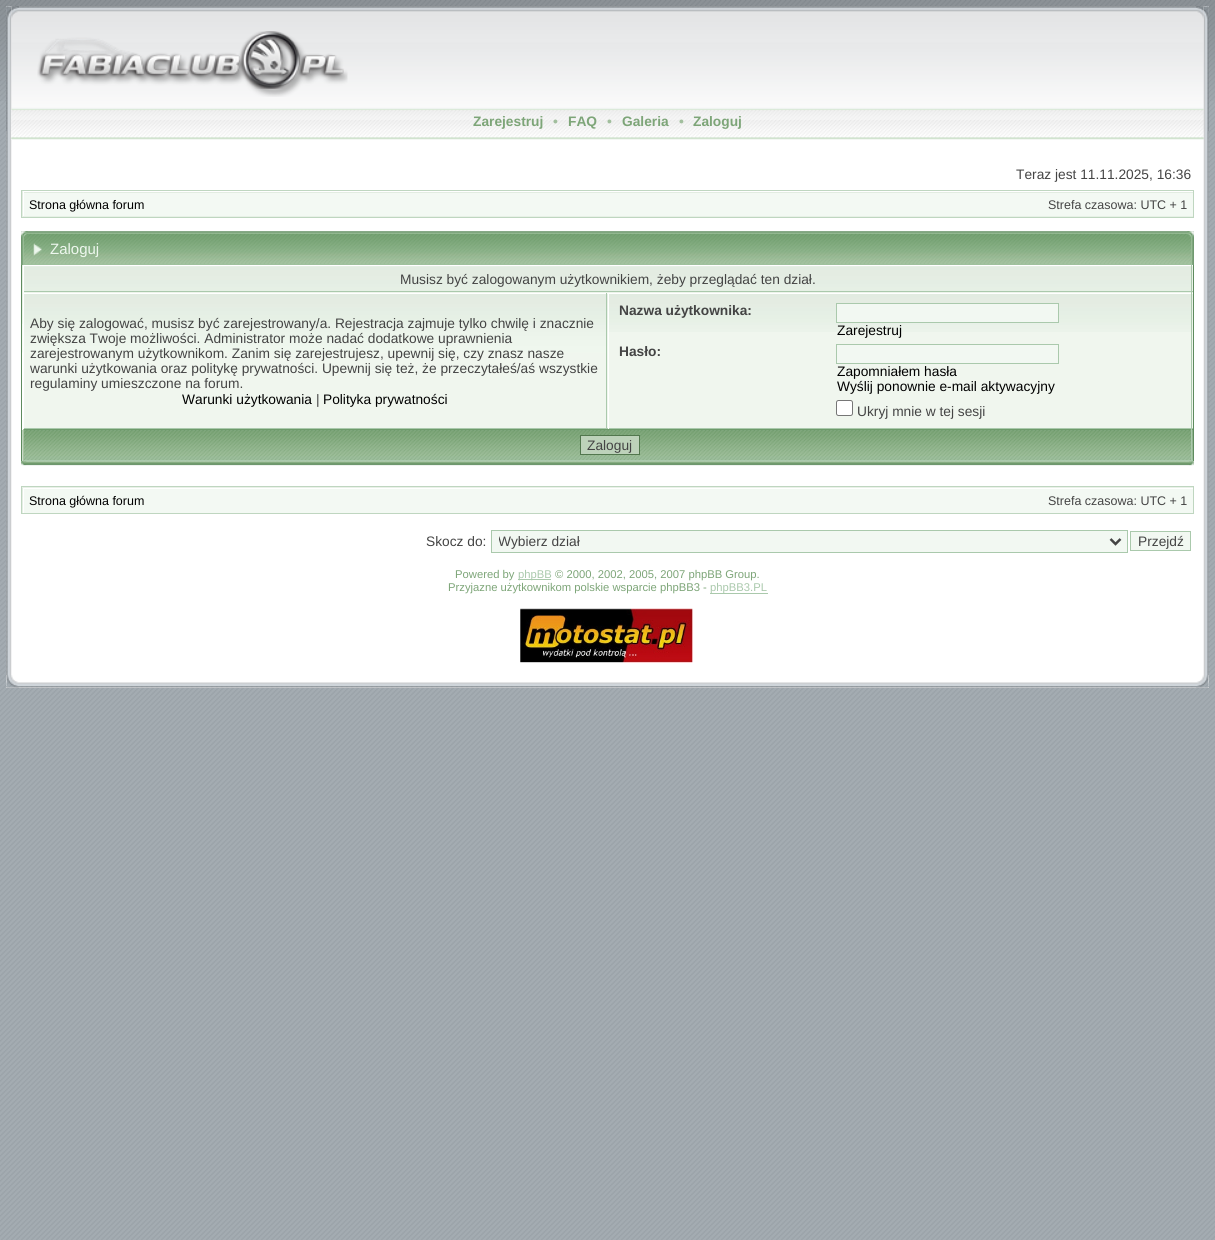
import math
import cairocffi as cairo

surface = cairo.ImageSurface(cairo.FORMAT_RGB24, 1215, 1240)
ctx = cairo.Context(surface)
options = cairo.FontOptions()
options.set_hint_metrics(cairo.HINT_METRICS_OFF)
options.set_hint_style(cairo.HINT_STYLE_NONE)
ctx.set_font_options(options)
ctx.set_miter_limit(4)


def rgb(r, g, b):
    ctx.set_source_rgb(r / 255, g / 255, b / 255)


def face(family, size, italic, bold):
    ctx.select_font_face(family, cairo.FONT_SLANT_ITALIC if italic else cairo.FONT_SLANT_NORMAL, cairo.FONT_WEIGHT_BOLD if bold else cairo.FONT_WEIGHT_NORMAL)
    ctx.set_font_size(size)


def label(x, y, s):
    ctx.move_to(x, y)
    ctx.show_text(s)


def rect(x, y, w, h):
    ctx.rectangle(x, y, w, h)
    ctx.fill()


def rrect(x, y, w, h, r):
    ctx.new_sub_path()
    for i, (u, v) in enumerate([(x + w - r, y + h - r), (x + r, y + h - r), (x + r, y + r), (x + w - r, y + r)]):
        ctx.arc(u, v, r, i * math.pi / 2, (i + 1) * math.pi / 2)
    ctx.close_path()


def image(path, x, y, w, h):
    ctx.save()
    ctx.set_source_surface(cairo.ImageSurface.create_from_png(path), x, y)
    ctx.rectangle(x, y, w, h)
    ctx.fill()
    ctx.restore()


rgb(255, 255, 255)
ctx.paint()
image('image0.png', 0, 101, 1215, 1139)
image('image1.png', 0, 0, 1215, 101)
rgb(255, 255, 255)
rect(6, 6, 1203, 682)
image('image4.png', 11, 6, 1193, 103)
image('image5.png', 11, 6, 8, 13)
image('image2.png', 6, 6, 6, 134)
image('image3.png', 6, 6, 6, 126)
image('image6.png', 1196, 6, 8, 13)
image('image7.png', 37, 31, 311, 66)
image('image8.png', 11, 108, 1193, 32)
face('Liberation Sans', 13.75, 0, 1)
rgb(125, 165, 120)
label(473, 126, 'Zarejestruj')
rgb(161, 190, 157)
label(553, 126, '•')
rgb(125, 165, 120)
label(568, 126, 'FAQ')
rgb(161, 190, 157)
label(607, 126, '•')
rgb(125, 165, 120)
label(622, 126, 'Galeria')
rgb(161, 190, 157)
label(679, 126, '•')
rgb(125, 165, 120)
label(693, 126, 'Zaloguj')
image('image9.png', 1203, 6, 6, 134)
image('image10.png', 1203, 6, 6, 126)
image('image11.png', 6, 140, 6, 535)
face('Liberation Sans', 13.75, 0, 0)
rgb(68, 68, 68)
label(1016, 179, 'Teraz jest 11.11.2025, 16:36')
image('image12.png', 22, 191, 1171, 26)
ctx.rectangle(21.5, 190.5, 1172, 27)
rgb(191, 214, 192)
ctx.set_line_width(1)
ctx.stroke()
rgb(243, 249, 243)
rect(24, 193, 1169, 23)
rgb(255, 255, 255)
rect(23, 191, 1170, 1)
rect(23, 191, 1, 25)
face('Liberation Sans', 12.5, 0, 0)
rgb(0, 0, 0)
label(29, 209, 'Strona główna forum')
rgb(68, 68, 68)
label(1048, 209, 'Strefa czasowa: UTC + 1')
image('image13.png', 21, 461, 1173, 5)
image('image14.png', 21, 231, 1173, 34)
image('image15.png', 21, 231, 21, 34)
image('image16.png', 1187, 231, 7, 34)
face('Liberation Sans', 15, 0, 0)
rgb(238, 247, 238)
label(50, 254, 'Zaloguj')
image('image17.png', 22, 265, 1, 59)
rgb(94, 139, 94)
rect(1193, 265, 1, 196)
rect(21, 265, 1, 196)
rgb(240, 246, 238)
rect(24, 266, 1169, 27)
image('image18.png', 24, 266, 1169, 27)
rgb(170, 201, 172)
rect(1191, 265, 1, 28)
rect(23, 291, 1170, 1)
rgb(255, 255, 255)
rect(23, 291, 1, 2)
face('Liberation Sans', 13.75, 0, 0)
rgb(68, 68, 68)
label(400, 284, 'Musisz być zalogowanym użytkownikiem, żeby przeglądać ten dział.')
rgb(240, 246, 238)
rect(24, 294, 584, 134)
image('image19.png', 22, 294, 586, 59)
rgb(170, 201, 172)
rect(606, 293, 1, 136)
rect(23, 428, 585, 1)
rgb(255, 255, 255)
rect(23, 293, 1, 136)
rgb(68, 68, 68)
label(30, 328, 'Aby się zalogować, musisz być zarejestrowany/a. Rejestracja zajmuje tylko chwilę i znacznie')
label(30, 343, 'zwiększa Twoje możliwości. Administrator może nadać dodatkowe uprawnienia')
label(30, 358, 'zarejestrowanym użytkownikom. Zanim się zarejestrujesz, upewnij się, czy znasz nasze')
label(30, 373, 'warunki użytkowania oraz politykę prywatności. Upewnij się też, że przeczytałeś/aś wszystkie')
label(30, 388, 'regulaminy umieszczone na forum.')
rgb(0, 0, 0)
label(182, 404, 'Warunki użytkowania')
rgb(68, 68, 68)
label(316, 404, '|')
rgb(0, 0, 0)
label(323, 404, 'Polityka prywatności')
rgb(240, 246, 238)
rect(609, 294, 584, 134)
image('image20.png', 607, 293, 586, 39)
rgb(255, 255, 255)
rect(608, 293, 585, 1)
rgb(170, 201, 172)
rect(1191, 293, 1, 136)
rect(608, 428, 585, 1)
rgb(255, 255, 255)
rect(608, 293, 1, 136)
face('Liberation Sans', 13.75, 0, 1)
rgb(68, 68, 68)
label(619, 315, 'Nazwa użytkownika:')
rgb(242, 248, 242)
ctx.rectangle(836.5, 303.5, 222, 19)
ctx.fill_preserve()
rgb(170, 201, 172)
ctx.stroke()
face('Liberation Sans', 13.75, 0, 0)
rgb(0, 0, 0)
label(837, 335, 'Zarejestruj')
face('Liberation Sans', 13.75, 0, 1)
rgb(68, 68, 68)
label(619, 356, 'Hasło:')
rgb(242, 248, 242)
ctx.rectangle(836.5, 344.5, 222, 19)
ctx.fill_preserve()
rgb(170, 201, 172)
ctx.stroke()
face('Liberation Sans', 13.75, 0, 0)
rgb(0, 0, 0)
label(837, 376, 'Zapomniałem hasła')
label(837, 391, 'Wyślij ponownie e-mail aktywacyjny')
rgb(255, 255, 255)
rrect(836.5, 400.5, 16, 15, 2)
ctx.fill_preserve()
rgb(118, 118, 118)
ctx.stroke()
rgb(68, 68, 68)
label(857, 416, 'Ukryj mnie w tej sesji')
rgb(159, 191, 158)
rect(1192, 430, 1, 30)
image('image21.png', 22, 430, 1171, 32)
rgb(109, 154, 106)
rect(23, 429, 1170, 1)
rgb(170, 201, 172)
rect(1191, 429, 1, 32)
rect(23, 460, 1170, 1)
rgb(166, 195, 161)
rect(23, 429, 1, 32)
rgb(189, 210, 186)
ctx.rectangle(580.5, 435.5, 59, 19)
ctx.fill_preserve()
rgb(82, 119, 78)
ctx.stroke()
rgb(68, 68, 68)
label(587, 450, 'Zaloguj')
image('image22.png', 21, 461, 6, 5)
image('image23.png', 1189, 461, 5, 5)
rgb(240, 246, 238)
rect(22, 487, 1171, 1)
image('image24.png', 22, 487, 1171, 26)
ctx.rectangle(21.5, 486.5, 1172, 27)
rgb(191, 214, 192)
ctx.stroke()
rgb(243, 249, 243)
rect(24, 489, 1169, 24)
rgb(255, 255, 255)
rect(23, 488, 1170, 1)
rect(23, 488, 1, 25)
face('Liberation Sans', 12.5, 0, 0)
rgb(0, 0, 0)
label(29, 505, 'Strona główna forum')
rgb(68, 68, 68)
label(1048, 505, 'Strefa czasowa: UTC + 1')
face('Liberation Sans', 13.75, 0, 0)
label(426, 546, 'Skocz do:')
rgb(242, 248, 242)
ctx.rectangle(491.5, 530.5, 636, 22)
ctx.fill_preserve()
rgb(170, 201, 172)
ctx.stroke()
ctx.new_path()
ctx.move_to(1110.5, 539)
ctx.line_to(1115.5, 544)
ctx.line_to(1120.5, 539)
rgb(68, 68, 68)
ctx.set_line_width(2.5)
ctx.stroke()
ctx.save()
ctx.rectangle(499, 533, 606, 17)
ctx.clip()
label(498, 546, 'Wybierz dział')
ctx.restore()
rgb(242, 248, 242)
ctx.rectangle(1130.5, 531.5, 60, 19)
ctx.fill_preserve()
rgb(170, 201, 172)
ctx.set_line_width(1)
ctx.stroke()
rgb(68, 68, 68)
label(1138, 546, 'Przejdź')
face('Liberation Sans', 11.25, 0, 0)
rgb(125, 165, 120)
label(455, 578, 'Powered by')
rgb(170, 201, 172)
rect(518, 579, 33, 1)
label(518, 578, 'phpBB')
rgb(125, 165, 120)
label(555, 578, '© 2000, 2002, 2005, 2007 phpBB Group.')
label(448, 591, 'Przyjazne użytkownikom polskie wsparcie phpBB3 -')
rgb(170, 201, 172)
rect(710, 593, 58, 1)
label(710, 591, 'phpBB3.PL')
image('image25.png', 520, 608, 173, 55)
image('image26.png', 1203, 140, 6, 535)
image('image27.png', 6, 682, 1203, 6)
image('image28.png', 6, 675, 13, 13)
image('image29.png', 1196, 675, 13, 13)
surface.write_to_png('render.png')
